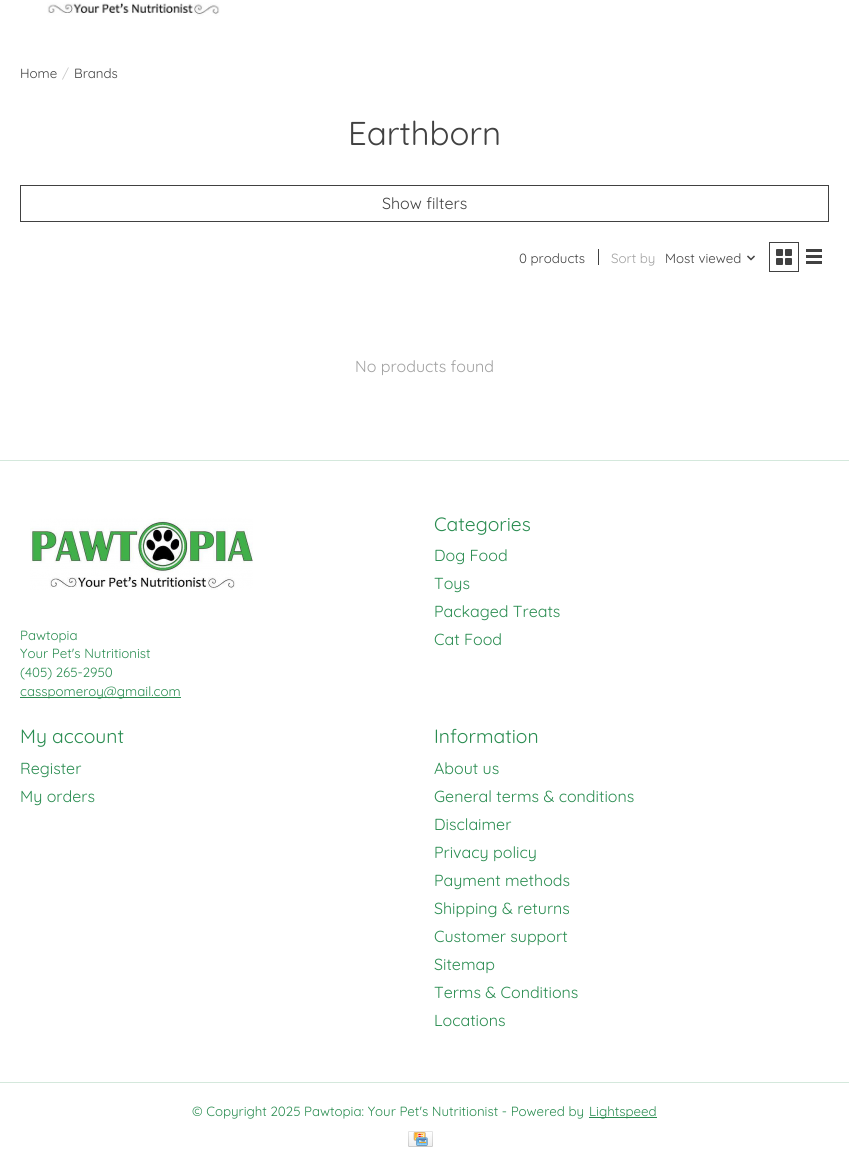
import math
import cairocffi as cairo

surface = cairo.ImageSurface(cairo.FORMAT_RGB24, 849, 1149)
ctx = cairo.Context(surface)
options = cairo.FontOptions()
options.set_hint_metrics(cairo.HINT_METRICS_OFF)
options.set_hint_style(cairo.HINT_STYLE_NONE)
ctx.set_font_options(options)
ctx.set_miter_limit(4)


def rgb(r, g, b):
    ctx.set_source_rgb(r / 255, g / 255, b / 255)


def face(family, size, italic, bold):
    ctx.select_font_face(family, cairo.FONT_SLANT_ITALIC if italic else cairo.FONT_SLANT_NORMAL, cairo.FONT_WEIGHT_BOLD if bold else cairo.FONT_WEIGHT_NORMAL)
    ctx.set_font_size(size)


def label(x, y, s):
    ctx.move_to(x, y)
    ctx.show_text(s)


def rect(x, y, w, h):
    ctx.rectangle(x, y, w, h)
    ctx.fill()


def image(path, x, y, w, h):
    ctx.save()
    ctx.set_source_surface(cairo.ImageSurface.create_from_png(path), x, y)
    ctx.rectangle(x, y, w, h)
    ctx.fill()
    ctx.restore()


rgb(255, 255, 255)
ctx.paint()
image('image0.png', 47, 2, 173, 14)
face('Quicksand', 13.3, 0, 0)
rgb(65, 65, 65)
label(20, 78, 'Home')
rgb(198, 198, 198)
label(62, 78, '/')
rgb(65, 65, 65)
label(74, 78, 'Brands')
face('Quicksand', 33, 0, 0)
label(348, 145, 'Earthborn')
ctx.rectangle(20.5, 185.5, 808, 36)
ctx.set_line_width(1)
ctx.stroke()
face('Quicksand', 16, 0, 0)
label(382, 209, 'Show filters')
face('Quicksand', 13.3, 0, 0)
label(519, 263, '0 products')
rect(598, 249, 1, 16)
rgb(160, 160, 160)
label(611, 263, 'Sort by')
rgb(65, 65, 65)
label(665, 263, 'Most viewed')
image('image1.png', 747, 255, 8, 6)
ctx.rectangle(769.5, 242.5, 29, 29)
ctx.stroke()
image('image2.png', 776, 249, 16, 16)
rect(806, 249, 16, 3)
rect(806, 255, 16, 3)
rect(806, 261, 16, 3)
face('Quicksand', 16, 0, 0)
rgb(160, 160, 160)
label(355, 372, 'No products found')
rgb(212, 232, 220)
rect(0, 460, 849, 1)
face('Quicksand', 19.25, 0, 0)
rgb(41, 140, 80)
label(434, 531, 'Categories')
face('Quicksand', 16, 0, 0)
label(434, 561, 'Dog Food')
label(434, 589, 'Toys')
label(434, 617, 'Packaged Treats')
label(434, 645, 'Cat Food')
image('image3.png', 30, 518, 223, 72)
face('Quicksand', 13.3, 0, 0)
label(20, 640, 'Pawtopia')
label(20, 658, 'Your Pet\'s Nutritionist')
label(20, 677, '(405) 265-2950')
rect(20, 697, 161, 1)
label(20, 696, 'casspomeroy@gmail.com')
face('Quicksand', 19.25, 0, 0)
label(20, 743, 'My account')
face('Quicksand', 16, 0, 0)
label(20, 774, 'Register')
label(20, 802, 'My orders')
face('Quicksand', 19.25, 0, 0)
label(434, 743, 'Information')
face('Quicksand', 16, 0, 0)
label(434, 774, 'About us')
label(434, 802, 'General terms & conditions')
label(434, 830, 'Disclaimer')
label(434, 858, 'Privacy policy')
label(434, 886, 'Payment methods')
label(434, 914, 'Shipping & returns')
label(434, 942, 'Customer support')
label(434, 970, 'Sitemap')
label(434, 998, 'Terms & Conditions')
label(434, 1026, 'Locations')
rgb(212, 232, 220)
rect(0, 1082, 849, 1)
face('Quicksand', 13.3, 0, 0)
rgb(41, 140, 80)
label(192, 1116, '© Copyright 2025 Pawtopia: Your Pet\'s Nutritionist - Powered by')
rect(589, 1117, 68, 1)
label(589, 1116, 'Lightspeed')
image('image4.png', 408, 1131, 25, 16)
surface.write_to_png('render.png')
